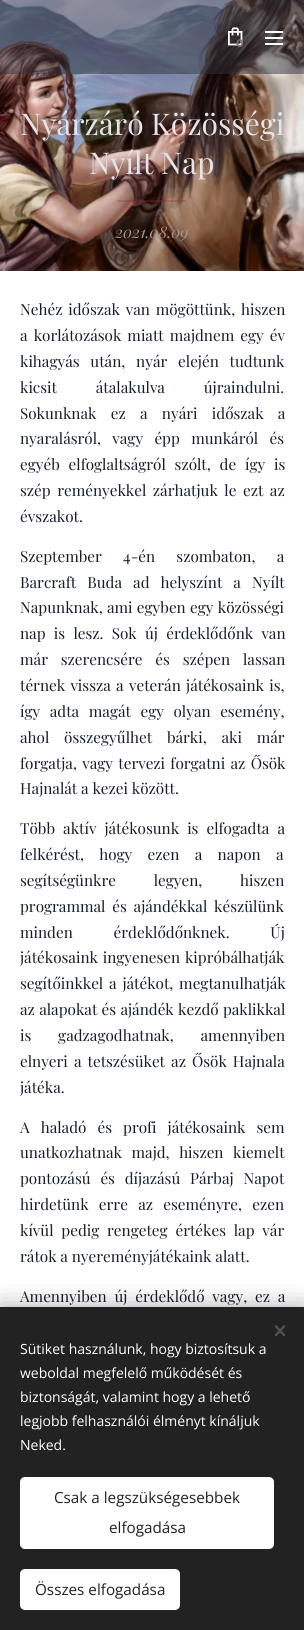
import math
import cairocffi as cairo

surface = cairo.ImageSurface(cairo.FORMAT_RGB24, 304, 1630)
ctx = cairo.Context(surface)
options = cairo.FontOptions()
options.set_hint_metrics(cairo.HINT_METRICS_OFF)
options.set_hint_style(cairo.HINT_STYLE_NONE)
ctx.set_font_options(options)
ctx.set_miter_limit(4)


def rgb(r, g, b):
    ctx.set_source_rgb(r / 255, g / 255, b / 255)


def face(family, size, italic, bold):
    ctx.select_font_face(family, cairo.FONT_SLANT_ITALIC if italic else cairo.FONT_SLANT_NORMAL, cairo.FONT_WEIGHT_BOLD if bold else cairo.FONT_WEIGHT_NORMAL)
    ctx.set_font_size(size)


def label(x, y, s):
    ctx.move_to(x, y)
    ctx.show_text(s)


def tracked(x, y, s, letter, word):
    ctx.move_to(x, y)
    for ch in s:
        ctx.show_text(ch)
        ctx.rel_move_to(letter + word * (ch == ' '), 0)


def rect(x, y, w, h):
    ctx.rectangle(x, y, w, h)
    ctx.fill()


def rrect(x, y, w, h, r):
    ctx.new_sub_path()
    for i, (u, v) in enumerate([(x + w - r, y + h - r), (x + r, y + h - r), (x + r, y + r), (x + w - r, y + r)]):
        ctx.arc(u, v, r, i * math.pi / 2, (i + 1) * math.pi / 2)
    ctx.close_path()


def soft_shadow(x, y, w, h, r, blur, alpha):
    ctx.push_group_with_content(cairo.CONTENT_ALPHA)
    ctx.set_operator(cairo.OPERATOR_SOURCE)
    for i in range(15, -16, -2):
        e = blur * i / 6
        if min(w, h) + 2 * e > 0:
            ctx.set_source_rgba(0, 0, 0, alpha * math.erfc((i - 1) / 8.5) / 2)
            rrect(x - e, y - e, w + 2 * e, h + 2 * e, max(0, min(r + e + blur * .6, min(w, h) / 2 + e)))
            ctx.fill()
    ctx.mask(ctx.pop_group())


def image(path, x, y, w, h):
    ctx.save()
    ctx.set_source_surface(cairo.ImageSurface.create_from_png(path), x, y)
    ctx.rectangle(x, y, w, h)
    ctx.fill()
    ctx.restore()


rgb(255, 255, 255)
ctx.paint()
image('image1.png', 0, 0, 304, 271)
ctx.set_source_rgba(0.188, 0.196, 0.231, 0.5)
rect(0, 0, 304, 74)
image('image0.png', 228, 27, 15, 19)
face('Montserrat', 11, 0, 1)
rgb(118, 113, 115)
label(236, 47, '0')
rgb(255, 255, 255)
rect(265, 37, 18, 2)
rect(265, 31, 18, 2)
rect(265, 43, 18, 2)
face('Playfair Display', 30, 0, 0)
rgb(227, 227, 235)
label(20, 135, 'Nyárzáró Közösségi')
label(89, 174, 'Nyílt Nap')
ctx.set_source_rgba(0.588, 0.141, 0.227, 0.3)
rect(118, 200, 68, 2)
face('Playfair Display', 16, 1, 0)
rgb(163, 151, 144)
label(115, 238, '2021.08.09')
face('Playfair Display', 15.25, 0, 0)
rgb(20, 28, 45)
tracked(20, 315, 'Nehéz időszak van mögöttünk, hiszen', 0, 2)
tracked(20, 341, 'a korlátozások miatt majdnem egy év', 0, 2.25)
tracked(20, 367, 'kihagyás után, nyár elején tudtunk', 0, 7)
tracked(20, 393, 'kicsit átalakulva újraindulni.', 0, 35)
tracked(20, 419, 'Sokunknak ez a nyári időszak a', 0, 10.5)
tracked(20, 444, 'nyaralásról, vagy épp munkáról és', 0, 7.5)
tracked(20, 470, 'egyéb elfoglaltságról szólt, de így is', 0, 5)
tracked(20, 496, 'szép reményekkel zárhatjuk le ezt az', 0, 2.75)
label(20, 522, 'évszakot.')
tracked(20, 562, 'Szeptember 4-én szombaton, a', 0, 17.5)
tracked(20, 588, 'Barcraft Buda ad helyszínt a Nyílt', 0, 7.25)
tracked(20, 613, 'Napunknak, ami egyben egy közösségi', 0, 0.5)
tracked(20, 639, 'nap is lesz. Sok új érdeklődőnk van', 0, 4.5)
tracked(20, 665, 'már szerencsére és szépen lassan', 0, 9)
tracked(20, 691, 'térnek vissza a veterán játékosaink is,', 0, 1.5)
tracked(20, 717, 'így adta magát egy olyan esemény,', 0, 5.75)
tracked(20, 743, 'ahol összegyűlhet bárki, aki már', 0, 11)
tracked(20, 769, 'forgatja, vagy tervezi forgatni az Ősök', 0, 1.5)
label(20, 794, 'Hajnalát a kezei között.')
tracked(20, 834, 'Több aktív játékosunk is elfogadta a', 0, 4.25)
tracked(20, 860, 'felkérést, hogy ezen a napon a', 0, 11.5)
tracked(20, 886, 'segítségünkre legyen, hiszen', 0, 34)
tracked(20, 912, 'programmal és ajándékkal készülünk', 0, 3)
tracked(20, 938, 'minden érdeklődőnknek. Új', 0, 37)
tracked(20, 963, 'játékosaink ingyenesen kipróbálhatják', 0, 1)
tracked(20, 989, 'segítőinkkel a játékot, megtanulhatják', 0, 2)
tracked(20, 1015, 'az alapokat és ajándék kezdő paklikkal', 0, 0.5)
tracked(20, 1041, 'is gadzagodhatnak, amennyiben', 0, 23)
tracked(20, 1067, 'elnyeri a tetszésüket az Ősök Hajnala', 0, 2.25)
label(20, 1093, 'játéka.')
tracked(20, 1133, 'A haladó és profi játékosaink sem', 0, 7.25)
tracked(20, 1158, 'unatkozhatnak majd, hiszen kiemelt', 0, 5.75)
tracked(20, 1184, 'pontozású és díjazású Párbaj Napot', 0, 6)
tracked(20, 1210, 'hirdetünk erre az eseményre, ezen', 0, 6.5)
tracked(20, 1236, 'kívül pedig rengeteg értékes lap vár', 0, 4)
label(20, 1262, 'rátok a nyereményjátékaink alatt.')
tracked(20, 1302, 'Amennyiben új érdeklődő vagy, ez a', 0, 4)
rgb(0, 0, 0)
soft_shadow(0, 1307, 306, 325, 0, 12.5, 0.33)
rgb(34, 34, 34)
rect(0, 1307, 304, 323)
rgb(85, 85, 85)
ctx.new_path()
ctx.move_to(274.5, 1335)
ctx.line_to(284, 1325)
ctx.line_to(285.5, 1326.5)
ctx.line_to(276, 1336.5)
ctx.close_path()
ctx.fill()
ctx.new_path()
ctx.move_to(276, 1325)
ctx.line_to(285.5, 1335)
ctx.line_to(284, 1336.5)
ctx.line_to(274.5, 1326.5)
ctx.close_path()
ctx.fill()
face('Open Sans', 14, 0, 0)
rgb(255, 255, 255)
label(20, 1354, 'Sütiket használunk, hogy biztosítsuk a')
label(20, 1378, 'weboldal megfelelő működését és')
label(20, 1402, 'biztonságát, valamint hogy a lehető')
label(20, 1426, 'legjobb felhasználói élményt kínáljuk')
label(20, 1450, 'Neked.')
rrect(20, 1477, 254, 72, 5)
ctx.fill()
face('Open Sans', 15.25, 0, 0)
rgb(34, 34, 34)
label(54, 1503, 'Csak a legszükségesebbek')
label(109, 1533, 'elfogadása')
rgb(255, 255, 255)
rrect(20, 1569, 160, 41, 5)
ctx.fill()
rgb(34, 34, 34)
label(35, 1595, 'Összes elfogadása')
surface.write_to_png('render.png')
